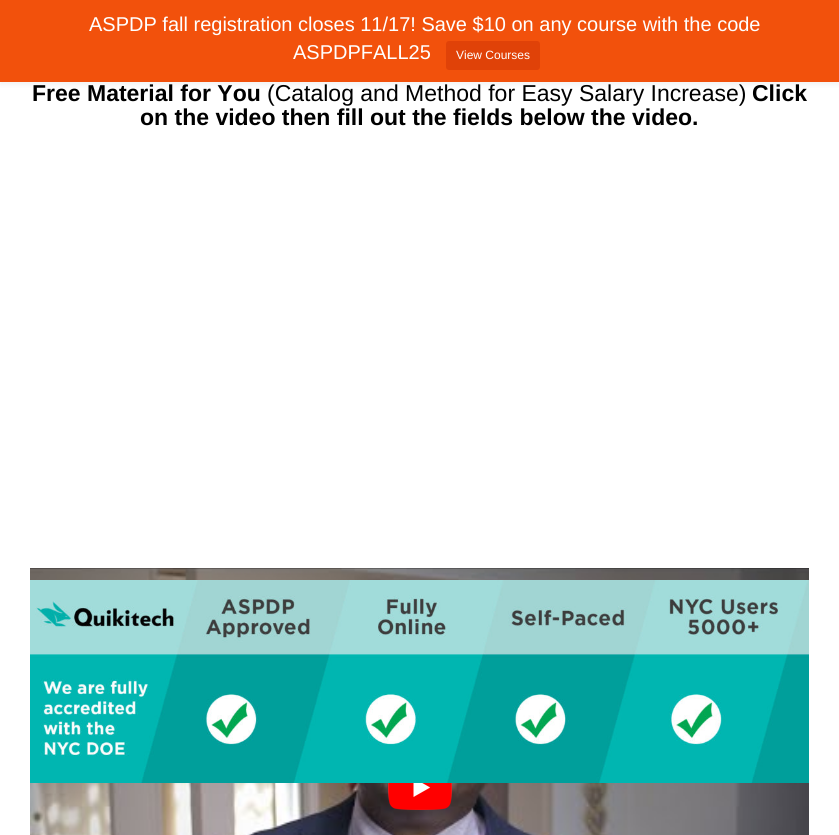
import math
import cairocffi as cairo

surface = cairo.ImageSurface(cairo.FORMAT_RGB24, 839, 835)
ctx = cairo.Context(surface)
options = cairo.FontOptions()
options.set_hint_metrics(cairo.HINT_METRICS_OFF)
options.set_hint_style(cairo.HINT_STYLE_NONE)
ctx.set_font_options(options)
ctx.set_miter_limit(4)


def rgb(r, g, b):
    ctx.set_source_rgb(r / 255, g / 255, b / 255)


def face(family, size, italic, bold):
    ctx.select_font_face(family, cairo.FONT_SLANT_ITALIC if italic else cairo.FONT_SLANT_NORMAL, cairo.FONT_WEIGHT_BOLD if bold else cairo.FONT_WEIGHT_NORMAL)
    ctx.set_font_size(size)


def label(x, y, s):
    ctx.move_to(x, y)
    ctx.show_text(s)


def rect(x, y, w, h):
    ctx.rectangle(x, y, w, h)
    ctx.fill()


def rrect(x, y, w, h, r):
    ctx.new_sub_path()
    for i, (u, v) in enumerate([(x + w - r, y + h - r), (x + r, y + h - r), (x + r, y + r), (x + w - r, y + r)]):
        ctx.arc(u, v, r, i * math.pi / 2, (i + 1) * math.pi / 2)
    ctx.close_path()


def soft_shadow(x, y, w, h, r, blur, alpha):
    ctx.push_group_with_content(cairo.CONTENT_ALPHA)
    ctx.set_operator(cairo.OPERATOR_SOURCE)
    for i in range(15, -16, -2):
        e = blur * i / 6
        if min(w, h) + 2 * e > 0:
            ctx.set_source_rgba(0, 0, 0, alpha * math.erfc((i - 1) / 8.5) / 2)
            rrect(x - e, y - e, w + 2 * e, h + 2 * e, max(0, min(r + e + blur * .6, min(w, h) / 2 + e)))
            ctx.fill()
    ctx.mask(ctx.pop_group())


def image(path, x, y, w, h):
    ctx.save()
    ctx.set_source_surface(cairo.ImageSurface.create_from_png(path), x, y)
    ctx.rectangle(x, y, w, h)
    ctx.fill()
    ctx.restore()


rgb(255, 255, 255)
ctx.paint()
rgb(0, 0, 0)
soft_shadow(0, 3, 839, 82, 0, 2, 0.05)
rgb(242, 81, 12)
rect(0, 0, 839, 82)
face('Liberation Sans', 20, 0, 0)
rgb(255, 255, 255)
label(89, 31, 'ASPDP fall registration closes 11/17! Save $10 on any course with the code')
label(293, 59, 'ASPDPFALL25')
rgb(224, 66, 8)
rrect(446, 41, 94, 29, 3)
ctx.fill()
face('Liberation Sans', 12, 0, 0)
rgb(255, 255, 255)
label(456, 59, 'View Courses')
face('Liberation Sans', 23, 0, 1)
rgb(0, 0, 0)
label(32, 101, 'Free Material for You')
face('Liberation Sans', 23, 0, 0)
label(267, 101, '(Catalog and Method for Easy Salary Increase)')
face('Liberation Sans', 23, 0, 1)
label(752, 101, 'Click')
label(140, 125, 'on the video then fill out the fields below the video.')
image('image0.png', 30, 568, 779, 267)
image('image1.png', 388, 783, 64, 27)
image('image2.png', 30, 580, 779, 203)
surface.write_to_png('render.png')
